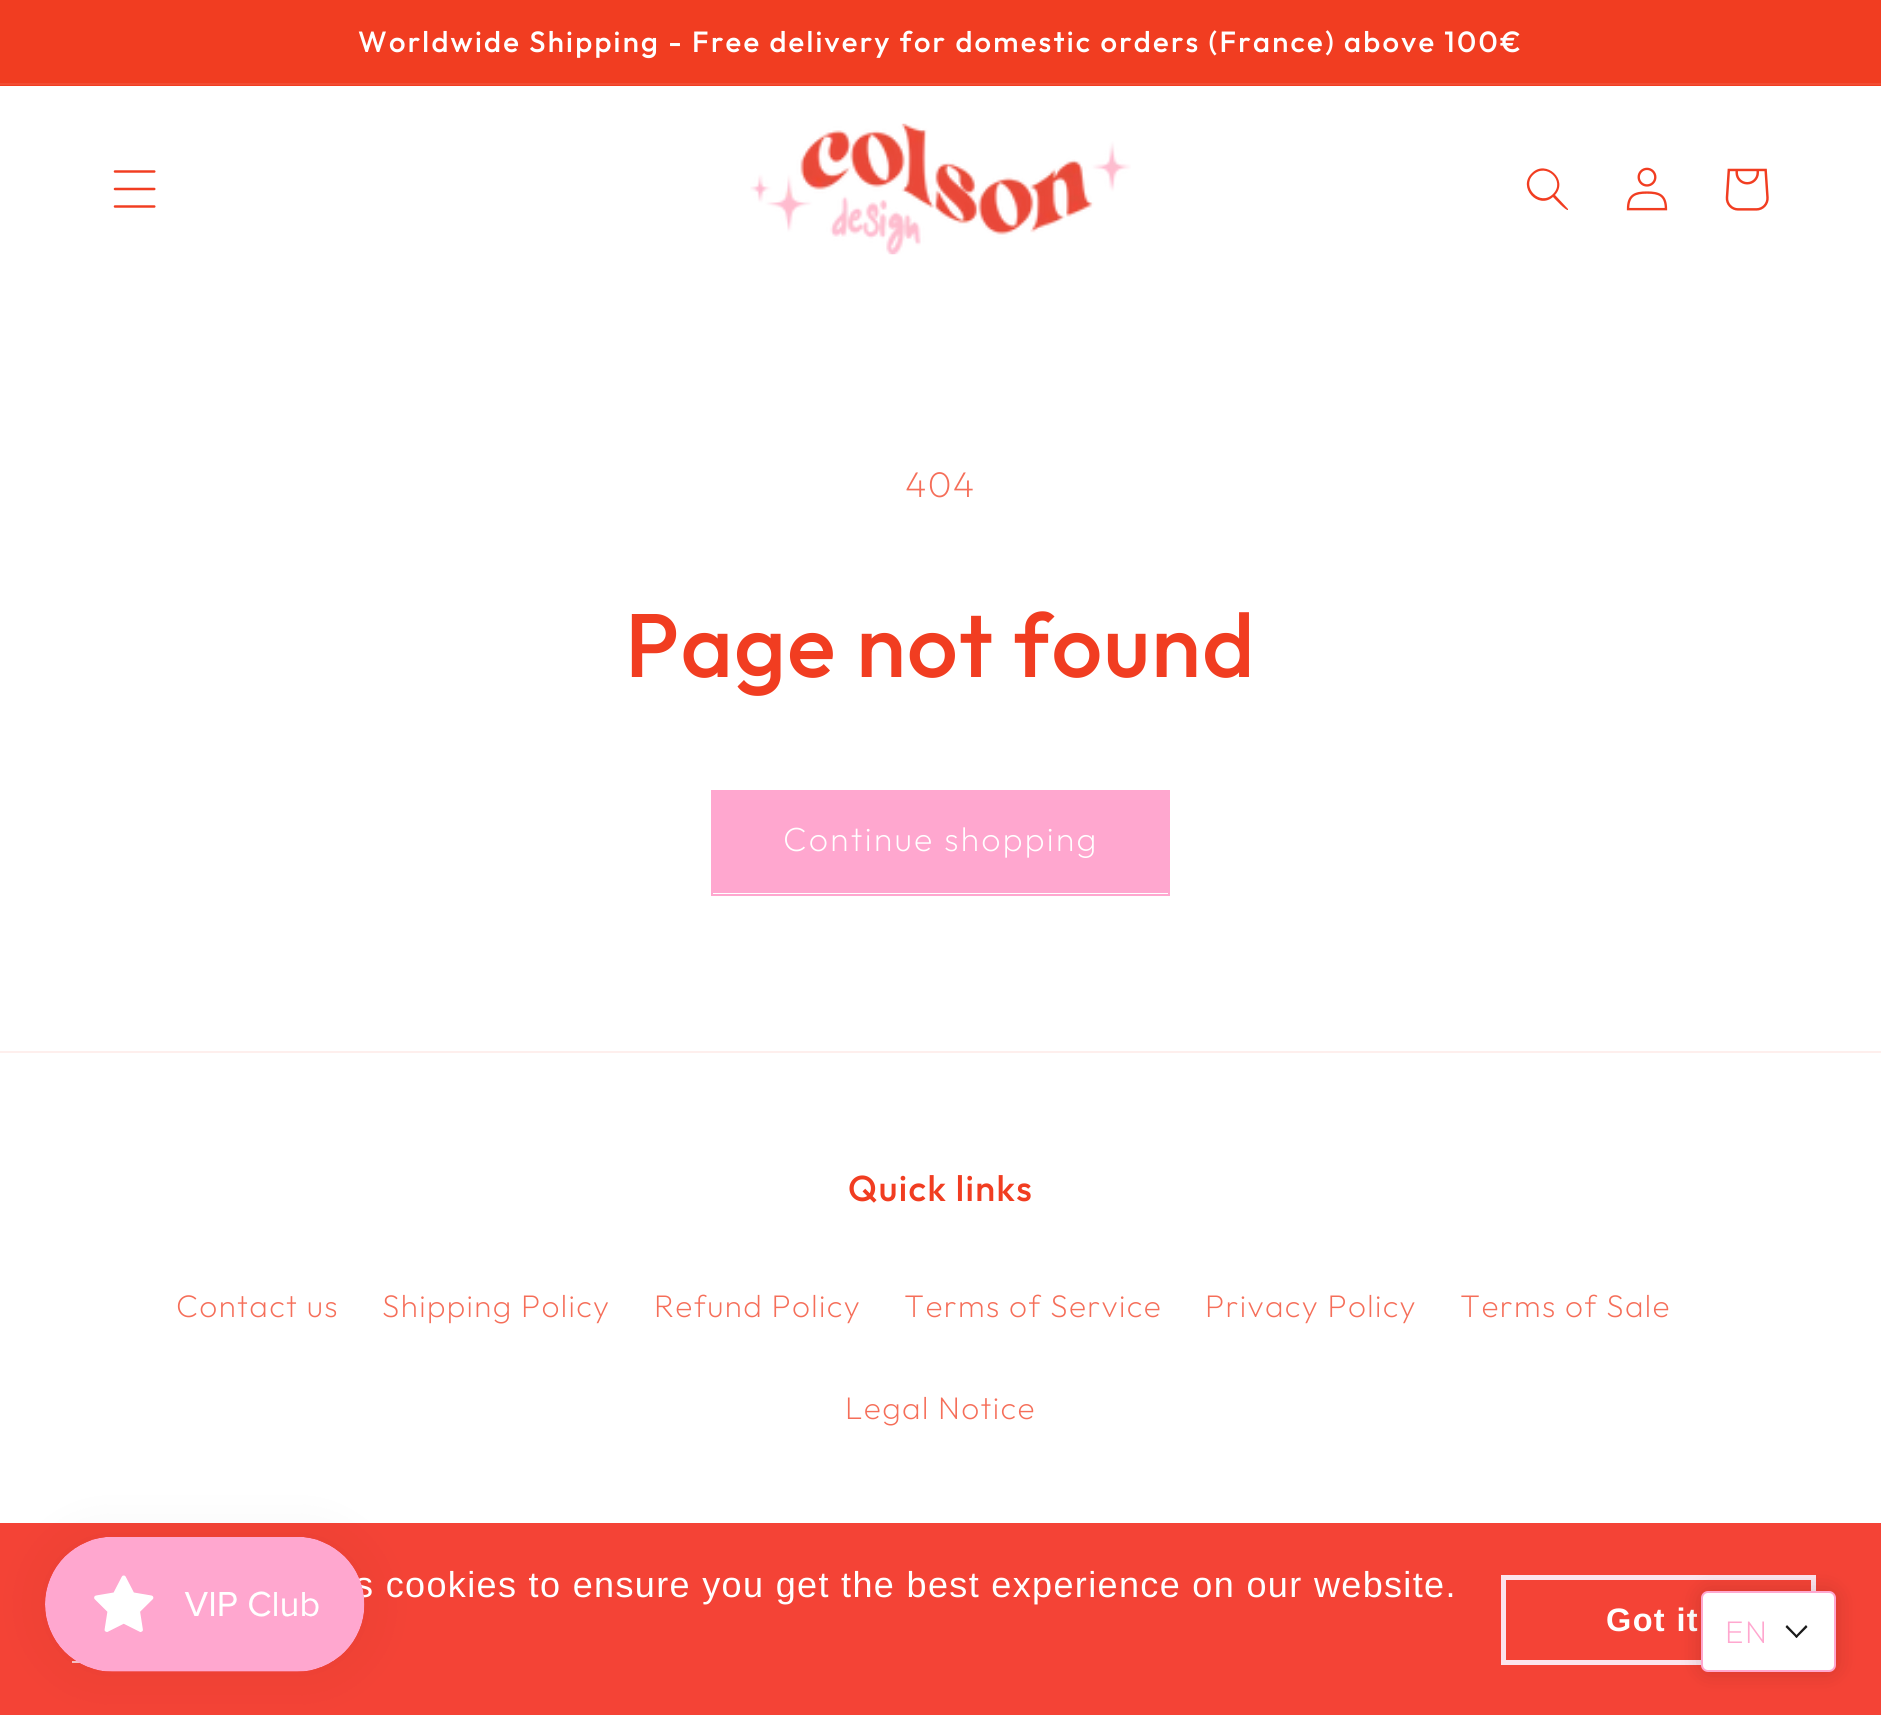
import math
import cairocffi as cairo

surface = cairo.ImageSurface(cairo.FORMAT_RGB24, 1881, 1715)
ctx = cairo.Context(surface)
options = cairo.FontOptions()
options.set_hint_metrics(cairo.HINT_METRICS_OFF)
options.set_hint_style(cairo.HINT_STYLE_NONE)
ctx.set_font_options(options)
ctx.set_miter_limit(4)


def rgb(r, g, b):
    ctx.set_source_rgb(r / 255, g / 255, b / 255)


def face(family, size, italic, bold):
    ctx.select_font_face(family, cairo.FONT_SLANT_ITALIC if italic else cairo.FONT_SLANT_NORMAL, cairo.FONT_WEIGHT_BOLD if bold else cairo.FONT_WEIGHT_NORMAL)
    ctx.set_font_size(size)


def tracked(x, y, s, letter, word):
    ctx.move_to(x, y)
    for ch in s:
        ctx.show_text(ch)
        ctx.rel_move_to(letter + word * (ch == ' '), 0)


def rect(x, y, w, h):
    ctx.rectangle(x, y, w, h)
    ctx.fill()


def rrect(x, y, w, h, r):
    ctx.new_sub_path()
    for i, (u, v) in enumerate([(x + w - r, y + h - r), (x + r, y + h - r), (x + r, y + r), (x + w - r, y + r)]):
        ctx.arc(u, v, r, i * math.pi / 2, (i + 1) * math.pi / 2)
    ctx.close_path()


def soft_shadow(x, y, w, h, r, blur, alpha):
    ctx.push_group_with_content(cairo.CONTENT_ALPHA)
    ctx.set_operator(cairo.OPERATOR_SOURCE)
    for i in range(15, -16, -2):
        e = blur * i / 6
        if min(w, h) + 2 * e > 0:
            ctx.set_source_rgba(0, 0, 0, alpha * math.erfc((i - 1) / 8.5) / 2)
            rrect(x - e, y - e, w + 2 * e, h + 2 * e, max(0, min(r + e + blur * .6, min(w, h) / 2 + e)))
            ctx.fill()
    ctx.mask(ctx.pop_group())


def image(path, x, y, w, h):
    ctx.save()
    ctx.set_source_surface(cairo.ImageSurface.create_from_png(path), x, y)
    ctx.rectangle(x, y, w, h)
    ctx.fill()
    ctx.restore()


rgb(255, 255, 255)
ctx.paint()
rgb(241, 61, 33)
rect(0, 0, 1881, 86)
rgb(242, 77, 51)
rect(0, 83, 1881, 2)
face('Outfit Medium', 29.25, 0, 0)
rgb(255, 255, 255)
tracked(358, 52, 'Worldwide Shipping - Free delivery for domestic orders (France) above 100€', 2.25, 0)
image('image0.png', 113, 170, 43, 38)
image('image1.png', 750, 123, 381, 132)
rgb(241, 61, 33)
ctx.set_fill_rule(cairo.FILL_RULE_EVEN_ODD)
ctx.new_path()
ctx.move_to(1553, 194)
ctx.curve_to(1540, 207, 1521, 187, 1533, 175)
ctx.curve_to(1546, 162, 1566, 181, 1553, 194)
ctx.close_path()
ctx.move_to(1553, 197)
ctx.curve_to(1538, 210, 1517, 187, 1532, 173)
ctx.curve_to(1546, 159, 1569, 180, 1555, 195)
ctx.line_to(1568, 209)
ctx.line_to(1568, 210)
ctx.curve_to(1566, 211, 1555, 199, 1553, 197)
ctx.close_path()
ctx.fill()
image('image2.png', 1626, 167, 42, 44)
image('image3.png', 1725, 168, 44, 43)
face('Outfit ExtraLight', 36, 0, 0)
rgb(245, 110, 89)
tracked(905, 497, '404', 1.35, 0)
face('Outfit Medium', 90, 0, 0)
rgb(241, 61, 33)
tracked(625, 677, 'Page not found', 1.35, 0)
ctx.rectangle(712, 791, 457, 104)
rgb(255, 167, 207)
ctx.stroke()
rect(713, 792, 455, 101)
face('Outfit ExtraLight', 33.75, 0, 0)
rgb(255, 255, 255)
tracked(783, 851, 'Continue shopping', 2.25, 0)
rgb(254, 239, 237)
rect(0, 1051, 1881, 2)
face('Outfit Medium', 36, 0, 0)
rgb(241, 61, 33)
tracked(848, 1201, 'Quick links', 1.35, 0)
face('Outfit ExtraLight', 31.5, 0, 0)
rgb(245, 110, 89)
tracked(176, 1317, 'Contact us', 1.35, 0)
tracked(382, 1317, 'Shipping Policy', 1.35, 0)
tracked(654, 1317, 'Refund Policy', 1.35, 0)
tracked(904, 1317, 'Terms of Service', 1.35, 0)
tracked(1205, 1317, 'Privacy Policy', 1.35, 0)
tracked(1460, 1317, 'Terms of Sale', 1.35, 0)
tracked(845, 1419, 'Legal Notice', 1.35, 0)
rgb(244, 67, 54)
rect(0, 1523, 1881, 192)
rgb(250, 196, 200)
rect(72, 1661, 8, 2)
rgb(0, 0, 0)
soft_shadow(45, 1537, 320, 135, 67.5, 28, 0.05)
face('Liberation Sans', 36, 0, 0)
rgb(255, 255, 255)
tracked(355, 1597, 's cookies to ensure you get the best experience on our website.', 1.35, 0)
image('image4.png', 45, 1537, 320, 135)
ctx.rectangle(1503.5, 1577.5, 310, 85)
rgb(252, 228, 236)
ctx.set_line_width(5)
ctx.stroke()
face('Liberation Sans', 32.5, 0, 1)
rgb(255, 255, 255)
tracked(1606, 1631, 'Got it', 1.35, 0)
rgb(0, 0, 0)
soft_shadow(1701, 1591, 135, 81, 7, 11, 0.15)
rgb(255, 255, 255)
rrect(1702, 1592, 133, 79, 6)
ctx.fill_preserve()
rgb(255, 167, 207)
ctx.set_line_width(2)
ctx.stroke()
face('Outfit ExtraLight', 31.5, 0, 0)
tracked(1725, 1643, 'EN', 1.35, 0)
rgb(26, 26, 26)
ctx.set_fill_rule(cairo.FILL_RULE_WINDING)
ctx.new_path()
ctx.move_to(1806, 1625)
ctx.line_to(1807.5, 1627)
ctx.line_to(1796.5, 1638)
ctx.line_to(1795, 1636.5)
ctx.close_path()
ctx.fill()
ctx.new_path()
ctx.move_to(1787, 1625)
ctx.line_to(1798, 1636.5)
ctx.line_to(1796.5, 1638)
ctx.line_to(1785.5, 1627)
ctx.close_path()
ctx.fill()
surface.write_to_png('render.png')
